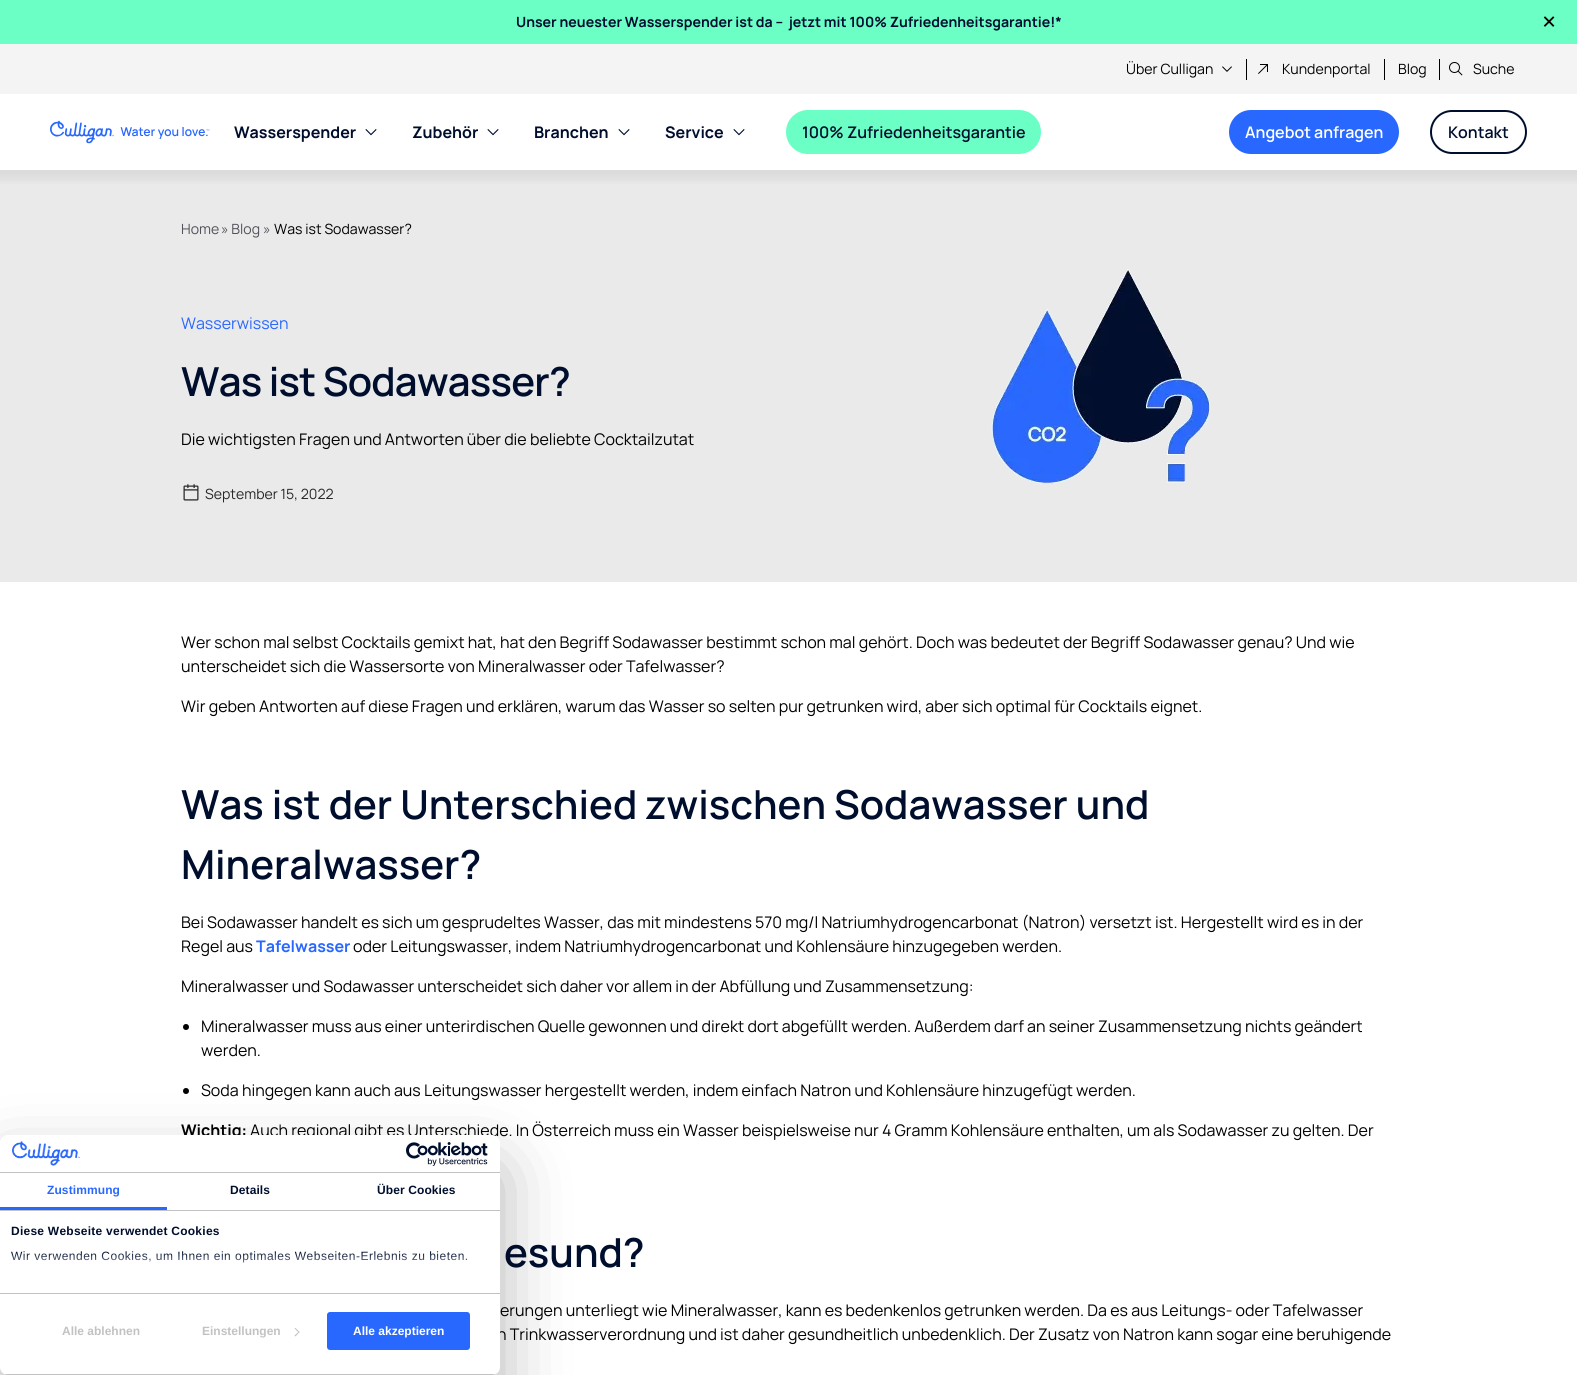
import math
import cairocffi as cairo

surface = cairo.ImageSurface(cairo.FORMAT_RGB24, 1577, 1375)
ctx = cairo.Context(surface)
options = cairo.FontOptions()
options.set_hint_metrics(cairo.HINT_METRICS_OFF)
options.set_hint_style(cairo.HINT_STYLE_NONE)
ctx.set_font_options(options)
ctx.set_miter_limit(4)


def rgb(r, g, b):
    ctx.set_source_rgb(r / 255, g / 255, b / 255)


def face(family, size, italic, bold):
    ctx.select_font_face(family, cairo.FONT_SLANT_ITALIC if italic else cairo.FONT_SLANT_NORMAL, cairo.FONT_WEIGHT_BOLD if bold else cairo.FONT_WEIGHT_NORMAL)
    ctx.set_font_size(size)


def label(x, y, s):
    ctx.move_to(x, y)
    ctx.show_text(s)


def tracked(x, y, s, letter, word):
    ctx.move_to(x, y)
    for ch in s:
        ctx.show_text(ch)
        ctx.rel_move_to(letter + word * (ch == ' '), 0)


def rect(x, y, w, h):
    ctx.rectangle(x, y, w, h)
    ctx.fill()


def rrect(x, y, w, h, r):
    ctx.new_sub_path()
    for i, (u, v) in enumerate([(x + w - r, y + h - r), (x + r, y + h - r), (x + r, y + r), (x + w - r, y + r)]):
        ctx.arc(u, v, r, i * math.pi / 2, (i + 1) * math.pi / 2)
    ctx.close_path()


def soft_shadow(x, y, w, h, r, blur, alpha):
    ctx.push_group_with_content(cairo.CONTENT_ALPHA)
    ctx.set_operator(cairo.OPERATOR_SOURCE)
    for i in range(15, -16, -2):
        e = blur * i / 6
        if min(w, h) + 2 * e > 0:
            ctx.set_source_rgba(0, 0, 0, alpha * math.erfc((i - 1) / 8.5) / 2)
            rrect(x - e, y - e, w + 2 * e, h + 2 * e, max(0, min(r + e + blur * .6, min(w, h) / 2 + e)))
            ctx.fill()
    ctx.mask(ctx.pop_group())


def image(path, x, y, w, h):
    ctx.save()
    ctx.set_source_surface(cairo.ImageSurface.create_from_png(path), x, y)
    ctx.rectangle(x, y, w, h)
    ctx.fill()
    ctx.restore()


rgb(255, 255, 255)
ctx.paint()
rgb(107, 255, 198)
rect(0, 0, 1577, 44)
face('Manrope', 14.1, 0, 1)
rgb(0, 14, 46)
label(516, 27, 'Unser neuester Wasserspender ist da –  jetzt mit 100% Zufriedenheitsgarantie!*')
face('Manrope', 29, 0, 0)
rgb(0, 0, 0)
label(1542, 32, '×')
rgb(234, 234, 234)
rect(0, 170, 1577, 412)
ctx.save()
ctx.rectangle(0, 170, 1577, 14)
ctx.clip()
rgb(113, 113, 122)
soft_shadow(-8, 88, 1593, 92, 0, 4, 0.12)
ctx.restore()
rgb(244, 244, 245)
rect(0, 44, 1577, 50)
face('Manrope', 14.1, 0, 0)
rgb(0, 0, 0)
label(1126, 74, 'Über Culligan')
image('image0.png', 1222, 66, 10, 6)
rect(1246, 59, 1, 21)
image('image1.png', 1258, 64, 10, 10)
label(1282, 74, 'Kundenportal')
rect(1384, 59, 1, 21)
label(1398, 74, 'Blog')
rect(1439, 59, 1, 21)
image('image2.png', 1449, 62, 14, 14)
label(1473, 74, 'Suche')
image('image3.png', 50, 120, 160, 24)
face('Manrope', 16, 0, 1)
rgb(0, 14, 46)
label(234, 138, 'Wasserspender')
image('image4.png', 365, 129, 12, 7)
label(412, 138, 'Zubehör')
image('image4.png', 487, 129, 12, 7)
label(534, 138, 'Branchen')
image('image4.png', 618, 129, 12, 7)
label(665, 138, 'Service')
image('image4.png', 733, 129, 12, 7)
rgb(107, 255, 198)
rrect(786, 110, 255, 44, 22)
ctx.fill()
face('Manrope SemiBold', 16, 0, 0)
rgb(0, 14, 46)
label(802, 138, '100% Zufriedenheitsgarantie')
rgb(41, 104, 254)
rrect(1229, 110, 170, 44, 22)
ctx.fill()
rgb(255, 255, 255)
label(1245, 138, 'Angebot anfragen')
rrect(1431, 111, 95, 42, 21)
rgb(0, 14, 46)
ctx.stroke()
label(1448, 138, 'Kontakt')
face('Manrope', 14.1, 0, 0)
rgb(82, 82, 91)
label(181, 234, 'Home')
label(221, 234, '» Blog')
label(263, 234, '»')
rgb(0, 0, 0)
label(274, 234, 'Was ist Sodawasser?')
face('Manrope', 16, 0, 0)
rgb(41, 104, 254)
label(181, 329, 'Wasserwissen')
face('Manrope SemiBold', 40, 0, 0)
rgb(0, 14, 46)
tracked(181, 396, 'Was ist Sodawasser?', -0.75, 0)
face('Manrope', 16, 0, 0)
rgb(0, 0, 0)
label(181, 445, 'Die wichtigsten Fragen und Antworten über die beliebte Cocktailzutat')
image('image5.png', 183, 484, 16, 17)
face('Manrope', 14.1, 0, 0)
rgb(39, 39, 42)
label(205, 499, 'September 15, 2022')
image('image6.png', 991, 268, 220, 216)
face('Manrope', 16, 0, 0)
rgb(0, 0, 0)
label(181, 648, 'Wer schon mal selbst Cocktails gemixt hat, hat den Begriff Sodawasser bestimmt schon mal gehört. Doch was bedeutet der Begriff Sodawasser genau? Und wie')
label(181, 672, 'unterscheidet sich die Wassersorte von Mineralwasser oder Tafelwasser?')
label(181, 712, 'Wir geben Antworten auf diese Fragen und erklären, warum das Wasser so selten pur getrunken wird, aber sich optimal für Cocktails eignet.')
face('Manrope SemiBold', 40, 0, 0)
rgb(0, 14, 46)
label(181, 819, 'Was ist der Unterschied zwischen Sodawasser und')
label(181, 879, 'Mineralwasser?')
face('Manrope', 16, 0, 0)
rgb(0, 0, 0)
label(181, 928, 'Bei Sodawasser handelt es sich um gesprudeltes Wasser, das mit mindestens 570 mg/l Natriumhydrogencarbonat (Natron) versetzt ist. Hergestellt wird es in der')
label(181, 952, 'Regel aus')
face('Manrope', 16, 0, 1)
rgb(41, 104, 254)
label(256, 952, 'Tafelwasser')
face('Manrope', 16, 0, 0)
rgb(0, 0, 0)
label(353, 952, 'oder Leitungswasser, indem Natriumhydrogencarbonat und Kohlensäure hinzugegeben werden.')
label(181, 992, 'Mineralwasser und Sodawasser unterscheidet sich daher vor allem in der Abfüllung und Zusammensetzung:')
ctx.new_path()
ctx.arc(186, 1027, 3, 0, 2 * math.pi)
ctx.fill()
label(201, 1032, 'Mineralwasser muss aus einer unterirdischen Quelle gewonnen und direkt dort abgefüllt werden. Außerdem darf an seiner Zusammensetzung nichts geändert')
label(201, 1056, 'werden.')
ctx.new_path()
ctx.arc(186, 1091, 3, 0, 2 * math.pi)
ctx.fill()
label(201, 1096, 'Soda hingegen kann auch aus Leitungswasser hergestellt werden, indem einfach Natron und Kohlensäure hinzugefügt werden.')
face('Manrope', 16, 0, 1)
label(181, 1136, 'Wichtig:')
face('Manrope', 16, 0, 0)
label(250, 1136, 'Auch regional gibt es Unterschiede. In Österreich muss ein Wasser beispielsweise nur 4 Gramm Kohlensäure enthalten, um als Sodawasser zu gelten. Der')
face('Manrope SemiBold', 40, 0, 0)
rgb(0, 14, 46)
label(504, 1267, 'esund?')
face('Manrope', 16, 0, 0)
rgb(0, 0, 0)
label(500, 1316, 'erungen unterliegt wie Mineralwasser, kann es bedenkenlos getrunken werden. Da es aus Leitungs- oder Tafelwasser')
label(497, 1340, 'n Trinkwasserverordnung und ist daher gesundheitlich unbedenklich. Der Zusatz von Natron kann sogar eine beruhigende')
rgb(0, 0, 0)
soft_shadow(0, 1167, 500, 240, 8, 34, 0.3)
rgb(255, 255, 255)
rrect(0, 1135, 500, 240, 8)
ctx.fill()
rgb(195, 194, 194)
rect(0, 1172, 500, 1)
image('image7.png', 12, 1141, 68, 25)
image('image8.png', 406, 1142, 82, 24)
rect(0, 1210, 500, 1)
rgb(41, 104, 254)
rect(0, 1207, 167, 3)
face('Liberation Sans', 12, 0, 1)
tracked(47, 1194, 'Zustimmung', 0.1, 0)
rgb(0, 14, 46)
tracked(230, 1194, 'Details', 0.1, 0)
tracked(377, 1194, 'Über Cookies', 0.1, 0)
rgb(195, 194, 194)
rect(0, 1293, 500, 1)
rgb(0, 14, 46)
tracked(11, 1235, 'Diese Webseite verwendet Cookies', 0.25, 0)
face('Liberation Sans', 12, 0, 0)
tracked(11, 1260, 'Wir verwenden Cookies, um Ihnen ein optimales Webseiten-Erlebnis zu bieten.', 0.5, 0)
gradient = cairo.LinearGradient(242, 1293, 242, 1252)
gradient.add_color_stop_rgba(0, 1, 1, 1, 1)
gradient.add_color_stop_rgba(0.5, 1, 1, 1, 0.8)
gradient.add_color_stop_rgba(1, 1, 1, 1, 0)
ctx.set_source(gradient)
rect(11, 1253, 456, 10)
ctx.save()
rrect(0, 1135, 500, 240, 8)
ctx.clip()
rgb(195, 194, 194)
rect(0, 1374, 500, 1)
ctx.restore()
face('Liberation Sans', 12, 0, 1)
rgb(195, 194, 194)
label(62, 1335, 'Alle ablehnen')
label(202, 1335, 'Einstellungen')
ctx.new_path()
ctx.move_to(295.5, 1328)
ctx.line_to(299.5, 1332)
ctx.line_to(299, 1333)
ctx.line_to(294.5, 1328.5)
ctx.close_path()
ctx.fill()
ctx.new_path()
ctx.move_to(299, 1331.5)
ctx.line_to(299.5, 1332)
ctx.line_to(295.5, 1336.5)
ctx.line_to(294.5, 1335.5)
ctx.close_path()
ctx.fill()
rgb(41, 104, 254)
rrect(328, 1313, 141, 36, 2)
ctx.fill_preserve()
ctx.stroke()
rgb(255, 255, 255)
label(353, 1335, 'Alle akzeptieren')
surface.write_to_png('render.png')
